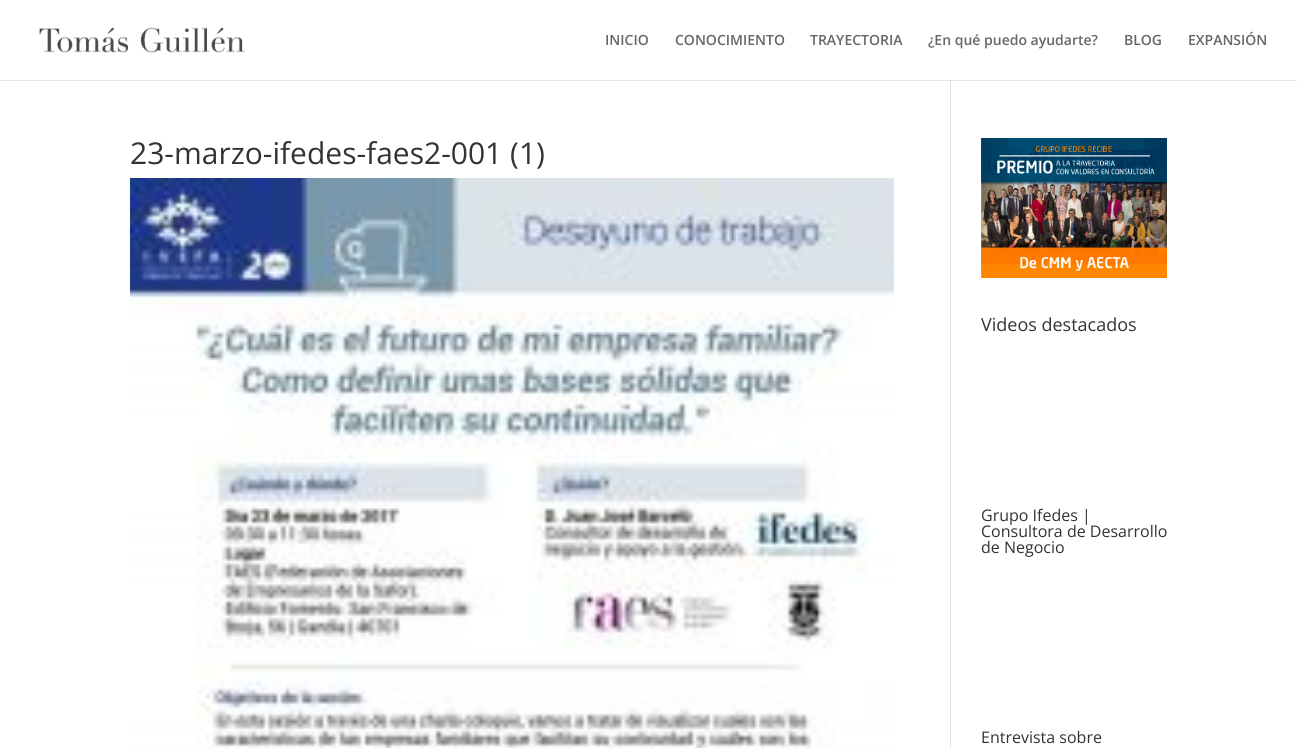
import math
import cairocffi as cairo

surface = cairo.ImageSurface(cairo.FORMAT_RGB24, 1297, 748)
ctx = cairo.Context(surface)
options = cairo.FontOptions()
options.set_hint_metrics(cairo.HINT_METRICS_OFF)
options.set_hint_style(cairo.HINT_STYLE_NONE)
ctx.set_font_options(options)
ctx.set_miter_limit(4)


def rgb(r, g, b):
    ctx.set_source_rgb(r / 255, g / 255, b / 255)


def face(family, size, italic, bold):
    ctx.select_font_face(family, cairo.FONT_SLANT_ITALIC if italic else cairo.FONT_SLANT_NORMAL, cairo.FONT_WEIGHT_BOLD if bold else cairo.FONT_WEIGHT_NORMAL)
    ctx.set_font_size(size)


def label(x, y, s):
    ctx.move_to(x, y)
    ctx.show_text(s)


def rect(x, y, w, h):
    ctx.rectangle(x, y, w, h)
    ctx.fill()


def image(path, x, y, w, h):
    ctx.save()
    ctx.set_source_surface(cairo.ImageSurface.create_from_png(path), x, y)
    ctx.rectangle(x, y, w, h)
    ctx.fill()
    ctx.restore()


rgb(255, 255, 255)
ctx.paint()
rgb(230, 230, 230)
rect(0, 80, 1297, 1)
image('image0.png', 39, 27, 206, 26)
face('Open Sans SemiBold', 14, 0, 0)
rgb(102, 102, 102)
label(605, 45, 'INICIO')
label(675, 45, 'CONOCIMIENTO')
label(810, 45, 'TRAYECTORIA')
label(928, 45, '¿En qué puedo ayudarte?')
label(1124, 45, 'BLOG')
label(1188, 45, 'EXPANSIÓN')
rgb(226, 226, 226)
rect(950, 80, 1, 668)
rgb(203, 203, 203)
rect(950, 80, 1, 1)
face('Open Sans', 30, 0, 0)
rgb(51, 51, 51)
label(130, 164, '23-marzo-ifedes-faes2-001 (1)')
image('image1.png', 130, 178, 764, 570)
image('image2.png', 981, 138, 186, 140)
face('Open Sans', 18, 0, 0)
label(981, 331, 'Videos destacados')
face('Open Sans', 16, 0, 0)
label(981, 521, 'Grupo Ifedes |')
label(981, 537, 'Consultora de Desarrollo')
label(981, 553, 'de Negocio')
label(981, 743, 'Entrevista sobre')
surface.write_to_png('render.png')
